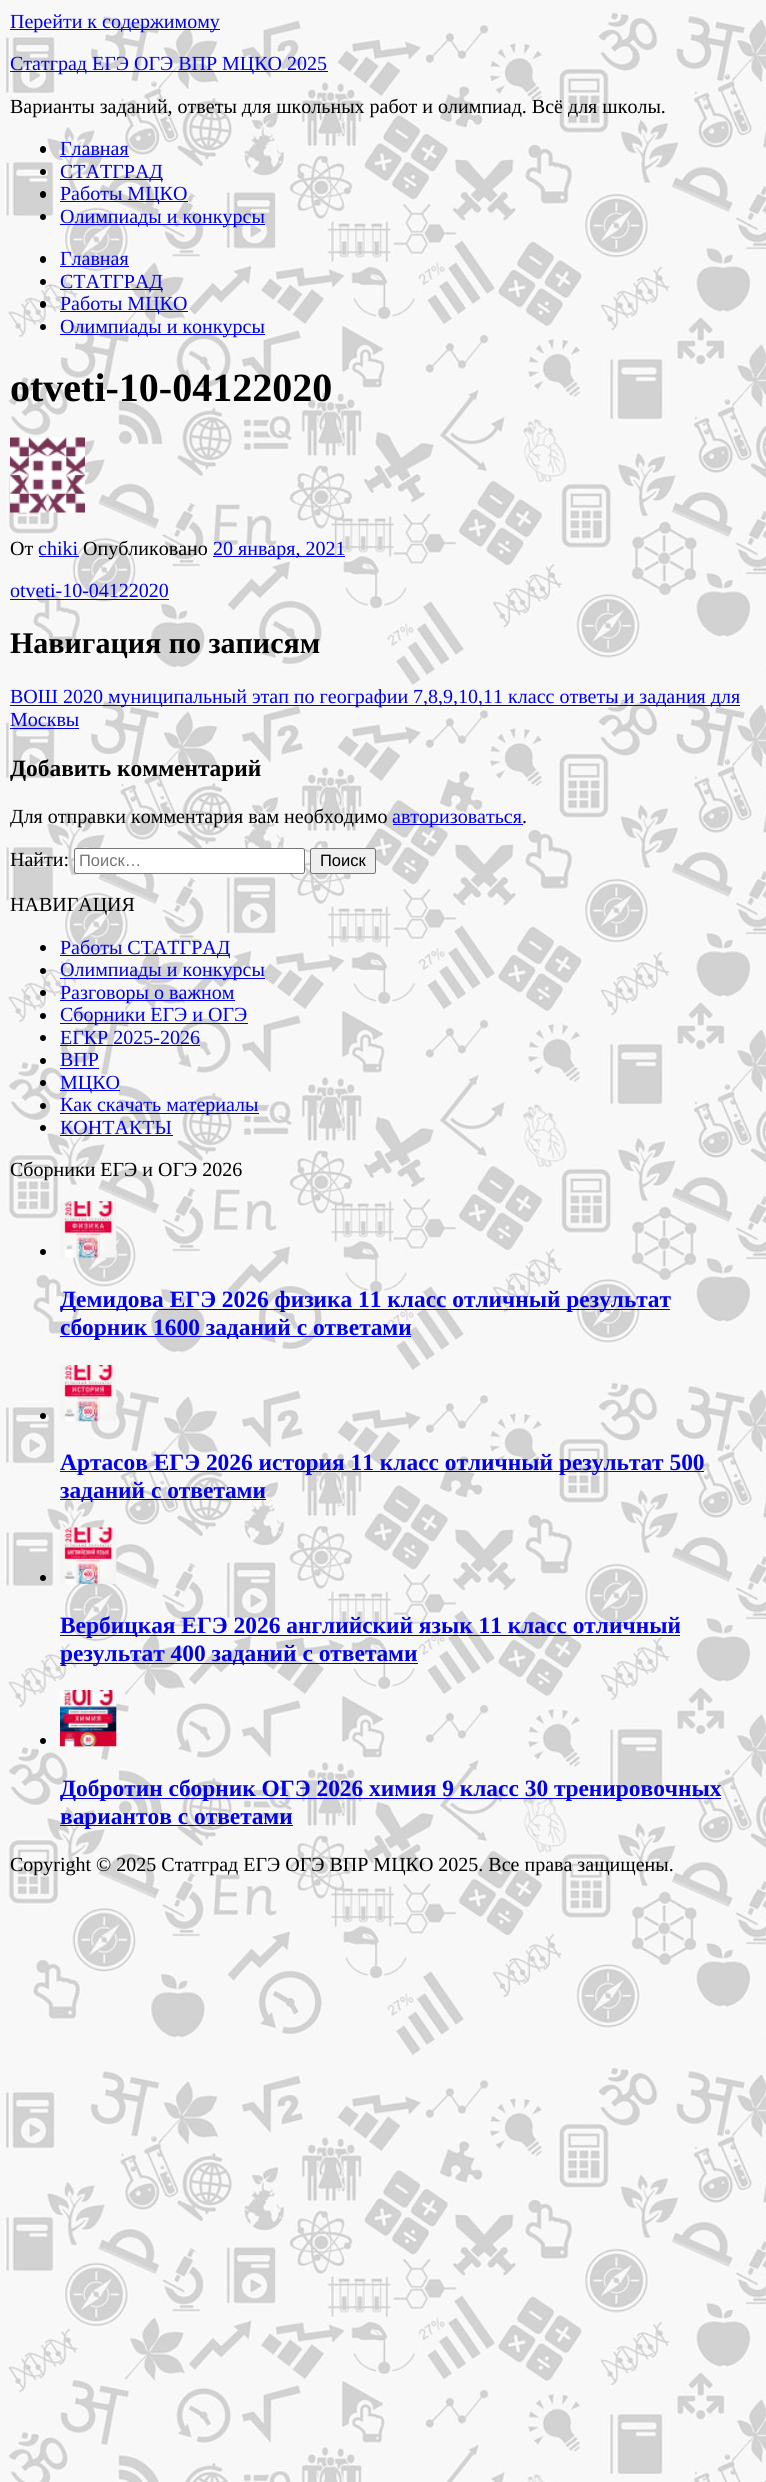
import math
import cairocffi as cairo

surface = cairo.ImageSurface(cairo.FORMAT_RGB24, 766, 2482)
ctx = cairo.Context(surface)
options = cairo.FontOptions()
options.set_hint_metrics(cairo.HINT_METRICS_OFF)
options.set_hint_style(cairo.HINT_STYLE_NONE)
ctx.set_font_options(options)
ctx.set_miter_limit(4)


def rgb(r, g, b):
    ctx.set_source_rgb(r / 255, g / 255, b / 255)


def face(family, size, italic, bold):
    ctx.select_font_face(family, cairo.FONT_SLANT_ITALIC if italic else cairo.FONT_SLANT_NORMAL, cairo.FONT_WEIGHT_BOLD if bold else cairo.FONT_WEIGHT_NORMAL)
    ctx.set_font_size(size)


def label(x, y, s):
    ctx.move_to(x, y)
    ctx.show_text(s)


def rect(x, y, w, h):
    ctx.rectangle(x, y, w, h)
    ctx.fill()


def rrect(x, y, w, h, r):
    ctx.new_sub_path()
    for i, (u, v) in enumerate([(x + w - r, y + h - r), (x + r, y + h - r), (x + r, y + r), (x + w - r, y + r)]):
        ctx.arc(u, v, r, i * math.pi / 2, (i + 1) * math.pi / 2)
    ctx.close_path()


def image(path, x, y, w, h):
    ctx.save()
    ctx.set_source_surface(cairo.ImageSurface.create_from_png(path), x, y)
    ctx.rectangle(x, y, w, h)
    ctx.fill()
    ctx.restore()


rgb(255, 255, 255)
ctx.paint()
image('image0.png', 0, 0, 766, 2482)
rgb(0, 0, 238)
rect(10, 29, 210, 1)
face('Liberation Serif', 20, 0, 0)
label(10, 28, 'Перейти к содержимому')
rect(10, 71, 318, 1)
label(10, 70, 'Статград ЕГЭ ОГЭ ВПР МЦКО 2025')
rgb(0, 0, 0)
label(10, 113, 'Варианты заданий, ответы для школьных работ и олимпиад. Всё для школы.')
rrect(40, 146, 6, 7, 3)
ctx.fill()
rgb(0, 0, 238)
label(60, 155, 'Главная')
rect(60, 156, 69, 1)
rgb(0, 0, 0)
ctx.new_path()
ctx.arc(43, 172, 3, 0, 2 * math.pi)
ctx.fill()
rgb(0, 0, 238)
rect(60, 179, 103, 1)
label(60, 178, 'СТАТГРАД')
rgb(0, 0, 0)
rrect(40, 191, 6, 7, 3)
ctx.fill()
rgb(0, 0, 238)
rect(60, 201, 128, 1)
label(60, 200, 'Работы МЦКО')
rgb(0, 0, 0)
ctx.new_path()
ctx.arc(43, 217, 3, 0, 2 * math.pi)
ctx.fill()
rgb(0, 0, 238)
rect(60, 224, 205, 1)
label(60, 223, 'Олимпиады и конкурсы')
rgb(0, 0, 0)
rrect(40, 256, 6, 7, 3)
ctx.fill()
rgb(0, 0, 238)
label(60, 265, 'Главная')
rect(60, 266, 69, 1)
rgb(0, 0, 0)
ctx.new_path()
ctx.arc(43, 282, 3, 0, 2 * math.pi)
ctx.fill()
rgb(0, 0, 238)
rect(60, 289, 103, 1)
label(60, 288, 'СТАТГРАД')
rgb(0, 0, 0)
rrect(40, 301, 6, 7, 3)
ctx.fill()
rgb(0, 0, 238)
rect(60, 311, 128, 1)
label(60, 310, 'Работы МЦКО')
rgb(0, 0, 0)
ctx.new_path()
ctx.arc(43, 327, 3, 0, 2 * math.pi)
ctx.fill()
rgb(0, 0, 238)
rect(60, 334, 205, 1)
label(60, 333, 'Олимпиады и конкурсы')
face('Liberation Serif', 40, 0, 1)
rgb(0, 0, 0)
label(10, 401, 'otveti-10-04122020')
image('image1.png', 10, 437, 75, 76)
face('Liberation Serif', 20, 0, 0)
label(10, 555, 'От')
rgb(0, 0, 238)
label(38, 555, 'chiki')
rect(39, 556, 40, 1)
rgb(0, 0, 0)
label(83, 555, 'Опубликовано')
rgb(0, 0, 238)
rect(213, 556, 132, 1)
label(213, 555, '20 января, 2021')
label(10, 597, 'otveti-10-04122020')
rect(10, 599, 159, 1)
face('Liberation Serif', 30, 0, 1)
rgb(0, 0, 0)
label(10, 653, 'Навигация по записям')
rgb(0, 0, 238)
rect(10, 705, 730, 1)
face('Liberation Serif', 20, 0, 0)
label(10, 703, 'ВОШ 2020 муниципальный этап по географии 7,8,9,10,11 класс ответы и задания для')
label(10, 726, 'Москвы')
rect(10, 728, 69, 1)
face('Liberation Serif', 23.4, 0, 1)
rgb(0, 0, 0)
label(10, 776, 'Добавить комментарий')
face('Liberation Serif', 20, 0, 0)
label(10, 823, 'Для отправки комментария вам необходимо')
rgb(0, 0, 238)
rect(393, 824, 130, 1)
label(392, 823, 'авторизоваться')
rgb(0, 0, 0)
label(522, 823, '.')
label(10, 866, 'Найти:')
rgb(255, 255, 255)
rrect(74.5, 848.5, 230, 25, 2)
ctx.fill_preserve()
rgb(118, 118, 118)
ctx.set_line_width(1)
ctx.stroke()
face('Liberation Sans', 16.5, 0, 0)
rgb(117, 117, 117)
label(79, 866, 'Поиск…')
rgb(239, 239, 239)
rrect(310.5, 848.5, 65, 25, 2)
ctx.fill_preserve()
rgb(118, 118, 118)
ctx.stroke()
rgb(0, 0, 0)
label(320, 866, 'Поиск')
face('Liberation Serif', 20, 0, 0)
label(10, 911, 'НАВИГАЦИЯ')
ctx.new_path()
ctx.arc(43, 948, 3, 0, 2 * math.pi)
ctx.fill()
rgb(0, 0, 238)
rect(60, 955, 170, 1)
label(60, 954, 'Работы СТАТГРАД')
rgb(0, 0, 0)
ctx.new_path()
ctx.arc(43, 971, 3, 0, 2 * math.pi)
ctx.fill()
rgb(0, 0, 238)
rect(60, 978, 205, 1)
label(60, 976, 'Олимпиады и конкурсы')
rgb(0, 0, 0)
ctx.new_path()
ctx.arc(43, 993, 3, 0, 2 * math.pi)
ctx.fill()
rgb(0, 0, 238)
rect(60, 1000, 175, 1)
label(60, 999, 'Разговоры о важном')
rgb(0, 0, 0)
ctx.new_path()
ctx.arc(43, 1016, 3, 0, 2 * math.pi)
ctx.fill()
rgb(0, 0, 238)
rect(60, 1023, 188, 1)
label(60, 1021, 'Сборники ЕГЭ и ОГЭ')
rgb(0, 0, 0)
ctx.new_path()
ctx.arc(43, 1038, 3, 0, 2 * math.pi)
ctx.fill()
rgb(0, 0, 238)
label(60, 1044, 'ЕГКР 2025-2026')
rect(60, 1045, 140, 1)
rgb(0, 0, 0)
ctx.new_path()
ctx.arc(43, 1061, 3, 0, 2 * math.pi)
ctx.fill()
rgb(0, 0, 238)
label(60, 1066, 'ВПР')
rect(60, 1068, 39, 1)
rgb(0, 0, 0)
ctx.new_path()
ctx.arc(43, 1083, 3, 0, 2 * math.pi)
ctx.fill()
rgb(0, 0, 238)
rect(60, 1090, 60, 1)
label(60, 1089, 'МЦКО')
rgb(0, 0, 0)
ctx.new_path()
ctx.arc(43, 1106, 3, 0, 2 * math.pi)
ctx.fill()
rgb(0, 0, 238)
rect(60, 1113, 199, 1)
label(60, 1111, 'Как скачать материалы')
rgb(0, 0, 0)
ctx.new_path()
ctx.arc(43, 1128, 3, 0, 2 * math.pi)
ctx.fill()
rgb(0, 0, 238)
label(60, 1134, 'КОНТАКТЫ')
rect(60, 1135, 113, 1)
rgb(0, 0, 0)
label(10, 1176, 'Сборники ЕГЭ и ОГЭ 2026')
ctx.new_path()
ctx.arc(43, 1252, 3, 0, 2 * math.pi)
ctx.fill()
image('image2.png', 60, 1201, 57, 57)
rgb(0, 0, 238)
rect(60, 1309, 610, 1)
face('Liberation Serif', 23.4, 0, 1)
label(60, 1307, 'Демидова ЕГЭ 2026 физика 11 класс отличный результат')
rect(60, 1336, 351, 1)
label(60, 1335, 'сборник 1600 заданий с ответами')
rgb(0, 0, 0)
ctx.new_path()
ctx.arc(43, 1416, 3, 0, 2 * math.pi)
ctx.fill()
image('image3.png', 60, 1365, 57, 57)
rgb(0, 0, 238)
rect(60, 1471, 644, 1)
label(60, 1470, 'Артасов ЕГЭ 2026 история 11 класс отличный результат 500')
rect(60, 1499, 206, 1)
label(60, 1498, 'заданий с ответами')
rgb(0, 0, 0)
ctx.new_path()
ctx.arc(43, 1578, 3, 0, 2 * math.pi)
ctx.fill()
image('image4.png', 60, 1527, 57, 57)
rgb(0, 0, 238)
rect(60, 1635, 620, 1)
label(60, 1633, 'Вербицкая ЕГЭ 2026 английский язык 11 класс отличный')
rect(60, 1663, 358, 1)
label(60, 1661, 'результат 400 заданий с ответами')
rgb(0, 0, 0)
ctx.new_path()
ctx.arc(43, 1741, 3, 0, 2 * math.pi)
ctx.fill()
image('image5.png', 60, 1690, 57, 57)
rgb(0, 0, 238)
rect(60, 1798, 661, 1)
label(60, 1796, 'Добротин сборник ОГЭ 2026 химия 9 класс 30 тренировочных')
rect(60, 1825, 233, 1)
label(60, 1824, 'вариантов с ответами')
face('Liberation Serif', 20, 0, 0)
rgb(0, 0, 0)
label(10, 1871, 'Copyright © 2025 Статград ЕГЭ ОГЭ ВПР МЦКО 2025. Все права защищены.')
surface.write_to_png('render.png')
